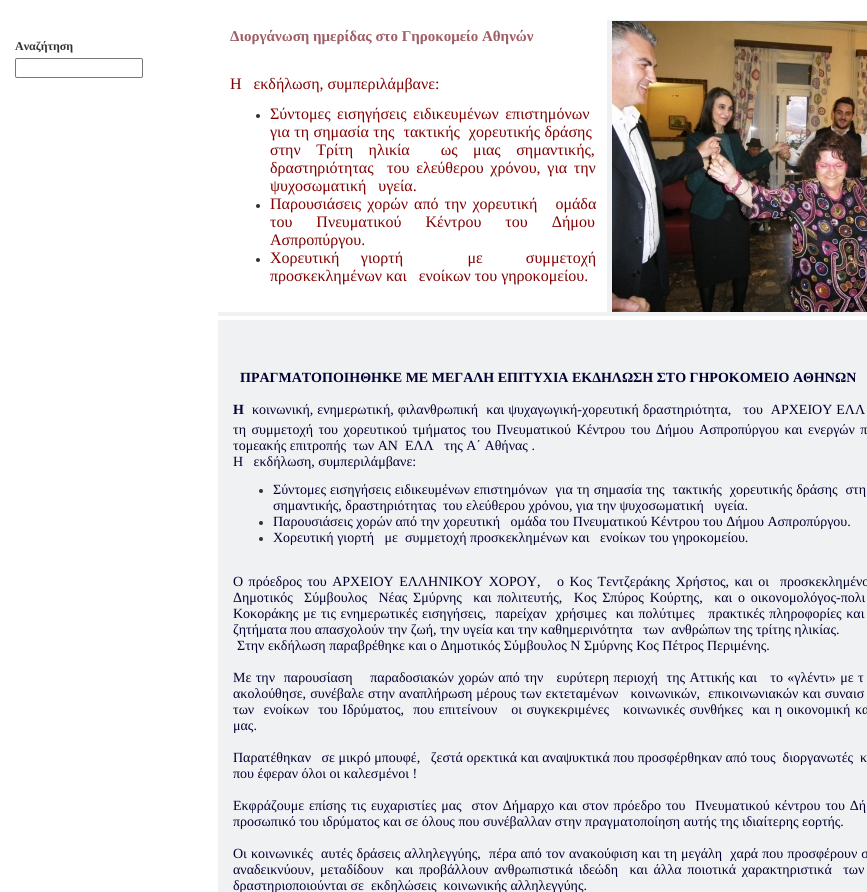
import math
import cairocffi as cairo

surface = cairo.ImageSurface(cairo.FORMAT_RGB24, 867, 892)
ctx = cairo.Context(surface)
options = cairo.FontOptions()
options.set_hint_metrics(cairo.HINT_METRICS_OFF)
options.set_hint_style(cairo.HINT_STYLE_NONE)
ctx.set_font_options(options)
ctx.set_miter_limit(4)


def rgb(r, g, b):
    ctx.set_source_rgb(r / 255, g / 255, b / 255)


def face(family, size, italic, bold):
    ctx.select_font_face(family, cairo.FONT_SLANT_ITALIC if italic else cairo.FONT_SLANT_NORMAL, cairo.FONT_WEIGHT_BOLD if bold else cairo.FONT_WEIGHT_NORMAL)
    ctx.set_font_size(size)


def label(x, y, s):
    ctx.move_to(x, y)
    ctx.show_text(s)


def tracked(x, y, s, letter, word):
    ctx.move_to(x, y)
    for ch in s:
        ctx.show_text(ch)
        ctx.rel_move_to(letter + word * (ch == ' '), 0)


def rect(x, y, w, h):
    ctx.rectangle(x, y, w, h)
    ctx.fill()


def rrect(x, y, w, h, r):
    ctx.new_sub_path()
    for i, (u, v) in enumerate([(x + w - r, y + h - r), (x + r, y + h - r), (x + r, y + r), (x + w - r, y + r)]):
        ctx.arc(u, v, r, i * math.pi / 2, (i + 1) * math.pi / 2)
    ctx.close_path()


def image(path, x, y, w, h):
    ctx.save()
    ctx.set_source_surface(cairo.ImageSurface.create_from_png(path), x, y)
    ctx.rectangle(x, y, w, h)
    ctx.fill()
    ctx.restore()


rgb(255, 255, 255)
ctx.paint()
face('Liberation Serif', 12, 0, 1)
rgb(51, 51, 51)
label(15, 50, 'Αναζήτηση')
rrect(15.5, 58.5, 127, 19, 1.5)
rgb(118, 118, 118)
ctx.set_line_width(1)
ctx.stroke()
rgb(240, 241, 242)
rect(218, 20, 649, 872)
rgb(255, 255, 255)
rect(218, 20, 389, 292)
face('Liberation Serif', 15, 0, 1)
rgb(159, 93, 102)
label(230, 41, 'Διοργάνωση ημερίδας στο Γηροκομείο Αθηνών')
face('Liberation Serif', 16, 0, 0)
rgb(128, 0, 0)
label(230, 89, 'Η   εκδήλωση, συμπεριλάμβανε:')
rgb(51, 51, 51)
ctx.new_path()
ctx.arc(258, 116, 2, 0, 2 * math.pi)
ctx.fill()
rgb(128, 0, 0)
tracked(270, 119, 'Σύντομες εισηγήσεις ειδικευμένων επιστημόνων', 0, 2.5)
tracked(270, 137, 'για τη σημασία της  τακτικής  χορευτικής δράσης', 0, 0.5)
tracked(270, 155, 'στην Τρίτη ηλικία  ως μιας σημαντικής,', 0, 11.5)
tracked(270, 173, 'δραστηριότητας  του ελεύθερου χρόνου, για την', 0, 2.75)
label(270, 191, 'ψυχοσωματική   υγεία.')
rgb(51, 51, 51)
ctx.new_path()
ctx.arc(258, 206, 2, 0, 2 * math.pi)
ctx.fill()
rgb(128, 0, 0)
tracked(270, 209, 'Παρουσιάσεις χορών από την χορευτική   ομάδα', 0, 2)
tracked(270, 227, 'του Πνευματικού Κέντρου του Δήμου', 0, 20)
label(270, 245, 'Ασπροπύργου.')
rgb(51, 51, 51)
ctx.new_path()
ctx.arc(258, 260, 2, 0, 2 * math.pi)
ctx.fill()
rgb(128, 0, 0)
tracked(270, 263, 'Χορευτική γιορτή   με  συμμετοχή', 0, 17.5)
label(270, 281, 'προσκεκλημένων και   ενοίκων του γηροκομείου.')
image('image0.png', 612, 21, 255, 291)
rgb(255, 255, 255)
rect(218, 316, 649, 4)
face('Liberation Serif', 14, 0, 1)
rgb(0, 0, 51)
label(240, 382, 'ΠΡΑΓΜΑΤΟΠΟΙΗΘΗΚΕ ΜΕ ΜΕΓΑΛΗ ΕΠΙΤΥΧΙΑ ΕΚΔΗΛΩΣΗ ΣΤΟ ΓΗΡΟΚΟΜΕΙΟ ΑΘΗΝΩΝ')
label(233, 414, 'Η')
face('Liberation Serif', 14, 0, 0)
tracked(252, 414, 'κοινωνική, ενημερωτική, φιλανθρωπική  και ψυχαγωγική-χορευτική δραστηριότητα,   του  ΑΡΧΕΙΟΥ ΕΛΛ', 0, 0.5)
tracked(233, 434, 'τη συμμετοχή του χορευτικού τμήματος του Πνευματικού Κέντρου του Δήμου Ασπροπύργου και ενεργών π', 0, 2)
label(233, 450, 'τομεακής επιτροπής  των ΑΝ  ΕΛΛ   της Α΄ Αθήνας .')
label(233, 466, 'Η   εκδήλωση, συμπεριλάμβανε:')
rgb(51, 51, 51)
ctx.new_path()
ctx.arc(261, 491, 2, 0, 2 * math.pi)
ctx.fill()
rgb(0, 0, 51)
tracked(273, 494, 'Σύντομες εισηγήσεις ειδικευμένων επιστημόνων  για τη σημασία της  τακτικής  χορευτικής δράσης  στη', 0, 0.5)
label(273, 510, 'σημαντικής, δραστηριότητας  του ελεύθερου χρόνου, για την ψυχοσωματική   υγεία.')
rgb(51, 51, 51)
ctx.new_path()
ctx.arc(261, 523, 2, 0, 2 * math.pi)
ctx.fill()
rgb(0, 0, 51)
label(273, 526, 'Παρουσιάσεις χορών από την χορευτική   ομάδα του Πνευματικού Κέντρου του Δήμου Ασπροπύργου.')
rgb(51, 51, 51)
ctx.new_path()
ctx.arc(261, 539, 2, 0, 2 * math.pi)
ctx.fill()
rgb(0, 0, 51)
label(273, 542, 'Χορευτική γιορτή   με  συμμετοχή προσκεκλημένων και   ενοίκων του γηροκομείου.')
tracked(233, 586, 'Ο πρόεδρος του ΑΡΧΕΙΟΥ ΕΛΛΗΝΙΚΟΥ ΧΟΡΟΥ,   ο Κος Τεντζεράκης Χρήστος, και οι  προσκεκλημένο', 0, 2)
label(233, 602, 'Δημοτικός')
tracked(304, 602, 'Σύμβουλος  Νέας Σμύρνης  και πολιτευτής,  Κος Σπύρος Κούρτης,  και ο οικονομολόγος-πολι', 0, 2.25)
tracked(233, 618, 'Κοκοράκης με τις ενημερωτικές εισηγήσεις,  παρείχαν  χρήσιμες  και πολύτιμες   πρακτικές πληροφορίες και', 0, 1.1)
label(233, 634, 'ζητήματα που απασχολούν την ζωή, την υγεία και την καθημερινότητα   των  ανθρώπων της τρίτης ηλικίας.')
label(237, 650, 'Στην εκδήλωση παραβρέθηκε και ο Δημοτικός Σύμβουλος Ν Σμύρνης Κος Πέτρος Περιμένης.')
tracked(233, 682, 'Με την  παρουσίαση    παραδοσιακών χορών από την   ευρύτερη περιοχή  της Αττικής και   το «γλέντι» με τ', 0, 0.9)
tracked(233, 698, 'ακολούθησε, συνέβαλε στην αναπλήρωση μέρους των εκτεταμένων   κοινωνικών,  επικοινωνιακών και συναισ', 0, 0.6)
tracked(233, 714, 'των  ενοίκων  του Ιδρύματος,  που επιτείνουν   οι συγκεκριμένες   κοινωνικές συνθήκες  και η οικονομική κα', 0, 1.1)
label(233, 730, 'μας.')
label(233, 762, 'Παρατέθηκαν   σε μικρό μπουφέ,   ζεστά ορεκτικά και αναψυκτικά που προσφέρθηκαν από τους  διοργανωτές  κ')
label(233, 778, 'που έφεραν όλοι οι καλεσμένοι !')
tracked(233, 810, 'Εκφράζουμε επίσης τις ευχαριστίες μας  στον Δήμαρχο και στον πρόεδρο του  Πνευματικού κέντρου του Δή', 0, 1.4)
label(233, 826, 'προσωπικό του ιδρύματος και σε όλους που συνέβαλλαν στην πραγματοποίηση αυτής της ιδιαίτερης εορτής.')
tracked(233, 858, 'Οι κοινωνικές  αυτές δράσεις αλληλεγγύης,  πέρα από τον ανακούφιση και τη μεγάλη  χαρά που προσφέρουν σ', 0, 0.6)
tracked(233, 874, 'αναδεικνύουν, μεταδίδουν  και προβάλλουν ανθρωπιστικά ιδεώδη  και άλλα ποιοτικά χαρακτηριστικά  των', 0, 2.25)
label(233, 890, 'δραστηριοποιούνται σε  εκδηλώσεις  κοινωνικής αλληλεγγύης.')
surface.write_to_png('render.png')
